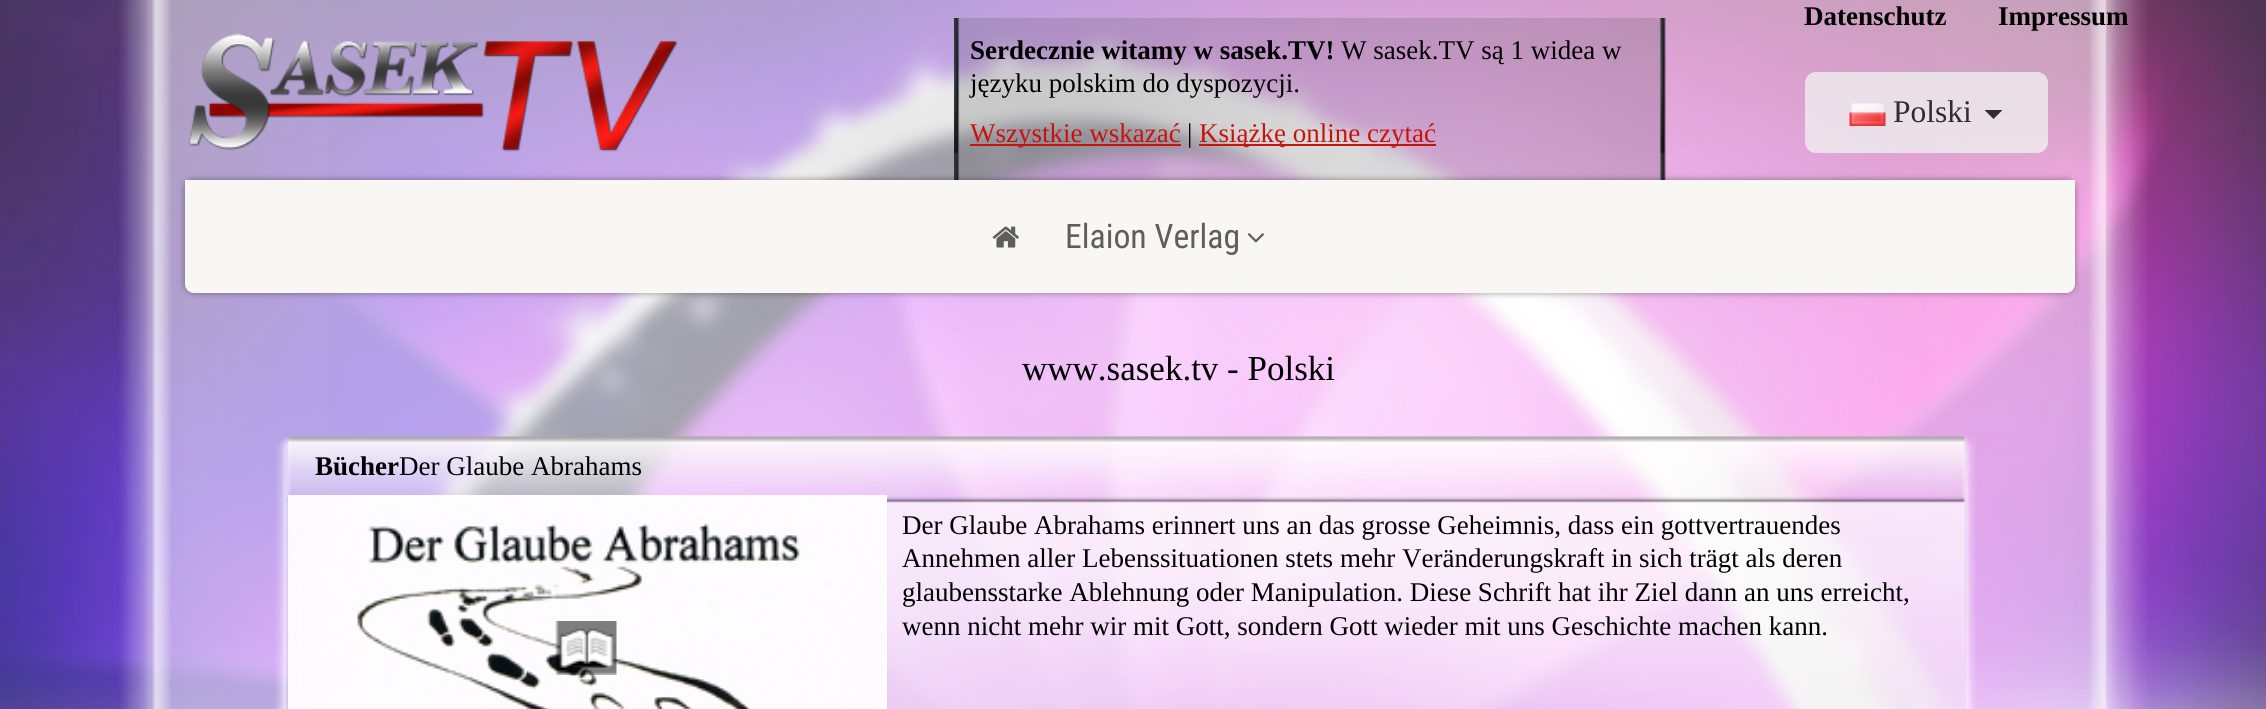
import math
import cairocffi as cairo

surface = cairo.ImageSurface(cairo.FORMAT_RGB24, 2266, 709)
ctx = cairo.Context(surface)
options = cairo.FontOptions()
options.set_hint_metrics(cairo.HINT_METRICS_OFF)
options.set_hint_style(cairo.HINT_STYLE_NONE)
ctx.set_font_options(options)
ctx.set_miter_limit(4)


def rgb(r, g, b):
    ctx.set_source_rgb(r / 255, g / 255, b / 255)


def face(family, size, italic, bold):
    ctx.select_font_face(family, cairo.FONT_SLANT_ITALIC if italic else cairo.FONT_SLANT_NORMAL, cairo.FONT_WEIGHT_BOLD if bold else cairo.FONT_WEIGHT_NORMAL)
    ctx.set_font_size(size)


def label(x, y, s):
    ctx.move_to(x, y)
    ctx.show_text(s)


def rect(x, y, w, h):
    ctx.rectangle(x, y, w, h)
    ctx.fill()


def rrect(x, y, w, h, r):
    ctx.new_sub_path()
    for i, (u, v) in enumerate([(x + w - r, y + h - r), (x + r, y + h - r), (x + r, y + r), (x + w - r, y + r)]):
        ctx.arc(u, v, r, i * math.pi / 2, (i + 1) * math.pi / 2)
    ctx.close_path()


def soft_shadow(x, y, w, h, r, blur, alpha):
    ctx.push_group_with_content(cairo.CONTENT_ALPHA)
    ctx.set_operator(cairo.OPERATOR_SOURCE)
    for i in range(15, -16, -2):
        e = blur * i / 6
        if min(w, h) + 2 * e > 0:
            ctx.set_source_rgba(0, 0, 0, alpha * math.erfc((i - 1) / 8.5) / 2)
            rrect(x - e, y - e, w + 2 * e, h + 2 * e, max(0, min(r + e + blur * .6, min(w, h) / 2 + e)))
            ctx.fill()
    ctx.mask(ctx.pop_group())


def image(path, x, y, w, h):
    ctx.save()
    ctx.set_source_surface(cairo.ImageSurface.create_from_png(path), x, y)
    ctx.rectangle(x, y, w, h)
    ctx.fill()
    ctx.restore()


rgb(255, 255, 255)
ctx.paint()
image('image0.png', 0, 0, 2266, 709)
image('image1.png', 119, 0, 2028, 709)
image('image2.png', 954, 18, 712, 162)
face('Liberation Serif', 27, 0, 1)
rgb(0, 0, 0)
label(970, 59, 'Serdecznie witamy w sasek.TV!')
face('Liberation Serif', 27, 0, 0)
label(1341, 59, 'W sasek.TV są 1 widea w')
label(970, 92, 'języku polskim do dyspozycji.')
rgb(200, 19, 13)
rect(970, 144, 211, 2)
label(970, 142, 'Wszystkie wskazać')
rgb(0, 0, 0)
label(1187, 142, '|')
rgb(200, 19, 13)
rect(1199, 144, 237, 2)
label(1199, 142, 'Książkę online czytać')
image('image3.png', 188, 33, 490, 119)
face('Liberation Serif', 27, 0, 1)
rgb(0, 0, 0)
label(1804, 25, 'Datenschutz')
label(1998, 25, 'Impressum')
ctx.set_source_rgba(0.933, 0.933, 0.933, 0.8)
rrect(1805, 72, 243, 81, 11)
ctx.fill()
image('image4.png', 1849, 103, 37, 23)
face('Liberation Serif', 31.5, 0, 0)
rgb(47, 45, 46)
label(1893, 122, 'Polski')
ctx.new_path()
ctx.move_to(1984.5, 110)
ctx.line_to(2002.5, 110)
ctx.line_to(1993.5, 119)
ctx.close_path()
ctx.fill()
rgb(0, 0, 0)
soft_shadow(185, 180, 1890, 113, 9, 3.5, 0.4)
rgb(248, 247, 243)
ctx.new_path()
ctx.move_to(185, 180)
ctx.line_to(2075, 180)
ctx.line_to(2075, 284)
ctx.curve_to(2075, 289, 2071, 293, 2066, 293)
ctx.line_to(194, 293)
ctx.curve_to(189, 293, 185, 289, 185, 284)
ctx.close_path()
ctx.fill()
image('image5.png', 992, 226, 27, 22)
face('Roboto Condensed', 33.75, 0, 0)
rgb(94, 94, 94)
label(1065, 248, 'Elaion Verlag')
image('image6.png', 1247, 233, 17, 10)
face('Liberation Serif', 35, 0, 0)
rgb(0, 0, 0)
label(1022, 380, 'www.sasek.tv - Polski')
image('image7.png', 275, 436, 1701, 273)
face('Liberation Serif', 27, 0, 1)
label(315, 475, 'Bücher')
face('Liberation Serif', 27, 0, 0)
label(399, 475, 'Der Glaube Abrahams')
rgb(255, 255, 255)
rect(883, 495, 4, 214)
image('image8.png', 288, 495, 597, 214)
image('image9.png', 555, 621, 62, 54)
rgb(0, 0, 0)
label(902, 534, 'Der Glaube Abrahams erinnert uns an das grosse Geheimnis, dass ein gottvertrauendes')
label(902, 567, 'Annehmen aller Lebenssituationen stets mehr Veränderungskraft in sich trägt als deren')
label(902, 601, 'glaubensstarke Ablehnung oder Manipulation. Diese Schrift hat ihr Ziel dann an uns erreicht,')
label(902, 635, 'wenn nicht mehr wir mit Gott, sondern Gott wieder mit uns Geschichte machen kann.')
surface.write_to_png('render.png')
